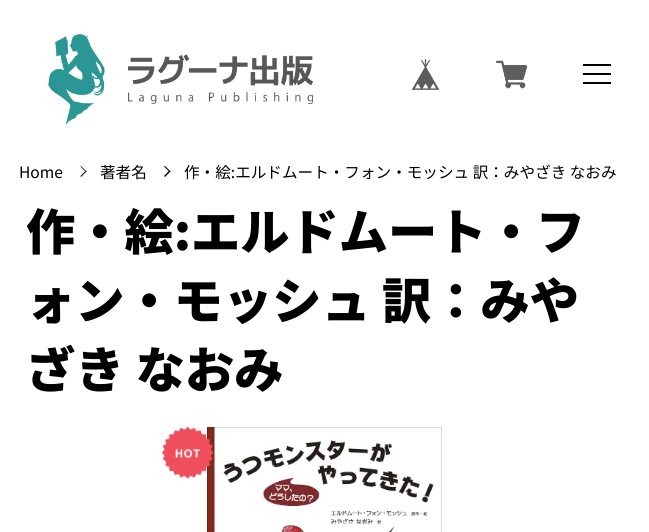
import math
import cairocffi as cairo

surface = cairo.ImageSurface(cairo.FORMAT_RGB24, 649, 532)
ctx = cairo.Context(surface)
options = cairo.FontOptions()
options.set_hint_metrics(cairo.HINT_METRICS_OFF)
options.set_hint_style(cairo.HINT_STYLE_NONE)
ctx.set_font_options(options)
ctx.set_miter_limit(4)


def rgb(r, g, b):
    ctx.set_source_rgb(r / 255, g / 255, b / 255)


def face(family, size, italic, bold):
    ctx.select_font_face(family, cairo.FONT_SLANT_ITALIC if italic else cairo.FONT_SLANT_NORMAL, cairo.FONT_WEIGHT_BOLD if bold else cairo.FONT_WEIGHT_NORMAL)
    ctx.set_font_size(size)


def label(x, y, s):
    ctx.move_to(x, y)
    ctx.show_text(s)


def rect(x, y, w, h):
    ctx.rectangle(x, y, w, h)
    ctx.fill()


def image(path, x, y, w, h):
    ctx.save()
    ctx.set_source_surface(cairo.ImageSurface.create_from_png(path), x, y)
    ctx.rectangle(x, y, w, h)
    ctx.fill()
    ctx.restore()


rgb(255, 255, 255)
ctx.paint()
image('image0.png', 48, 34, 265, 90)
image('image1.png', 411, 59, 29, 31)
image('image2.png', 496, 60, 31, 29)
rgb(0, 0, 0)
rect(583, 64, 28, 2)
rect(583, 73, 28, 2)
rect(583, 82, 28, 2)
face('Noto Sans JP', 15.6, 0, 0)
label(19, 178, 'Home')
ctx.new_path()
ctx.move_to(81, 166)
ctx.line_to(86.5, 171.5)
ctx.line_to(86, 172)
ctx.line_to(80.5, 166.5)
ctx.close_path()
ctx.fill()
ctx.new_path()
ctx.move_to(86, 170.5)
ctx.line_to(86.5, 171.5)
ctx.line_to(81, 177)
ctx.line_to(80.5, 176)
ctx.close_path()
ctx.fill()
label(100, 178, '著者名')
ctx.new_path()
ctx.move_to(165, 166)
ctx.line_to(170.5, 171.5)
ctx.line_to(169.5, 172)
ctx.line_to(164, 166.5)
ctx.close_path()
ctx.fill()
ctx.new_path()
ctx.move_to(169.5, 170.5)
ctx.line_to(170.5, 171.5)
ctx.line_to(165, 177)
ctx.line_to(164, 176)
ctx.close_path()
ctx.fill()
label(184, 178, '作・絵:エルドムート・フォン・モッシュ 訳：みやざき なおみ')
face('Noto Sans JP Black', 49.25, 0, 0)
label(26, 250, '作・絵:エルドムート・フ')
label(26, 319, 'ォン・モッシュ 訳：みや')
label(26, 388, 'ざき なおみ')
image('image4.png', 207, 427, 235, 105)
image('image3.png', 162, 426, 52, 53)
surface.write_to_png('render.png')
